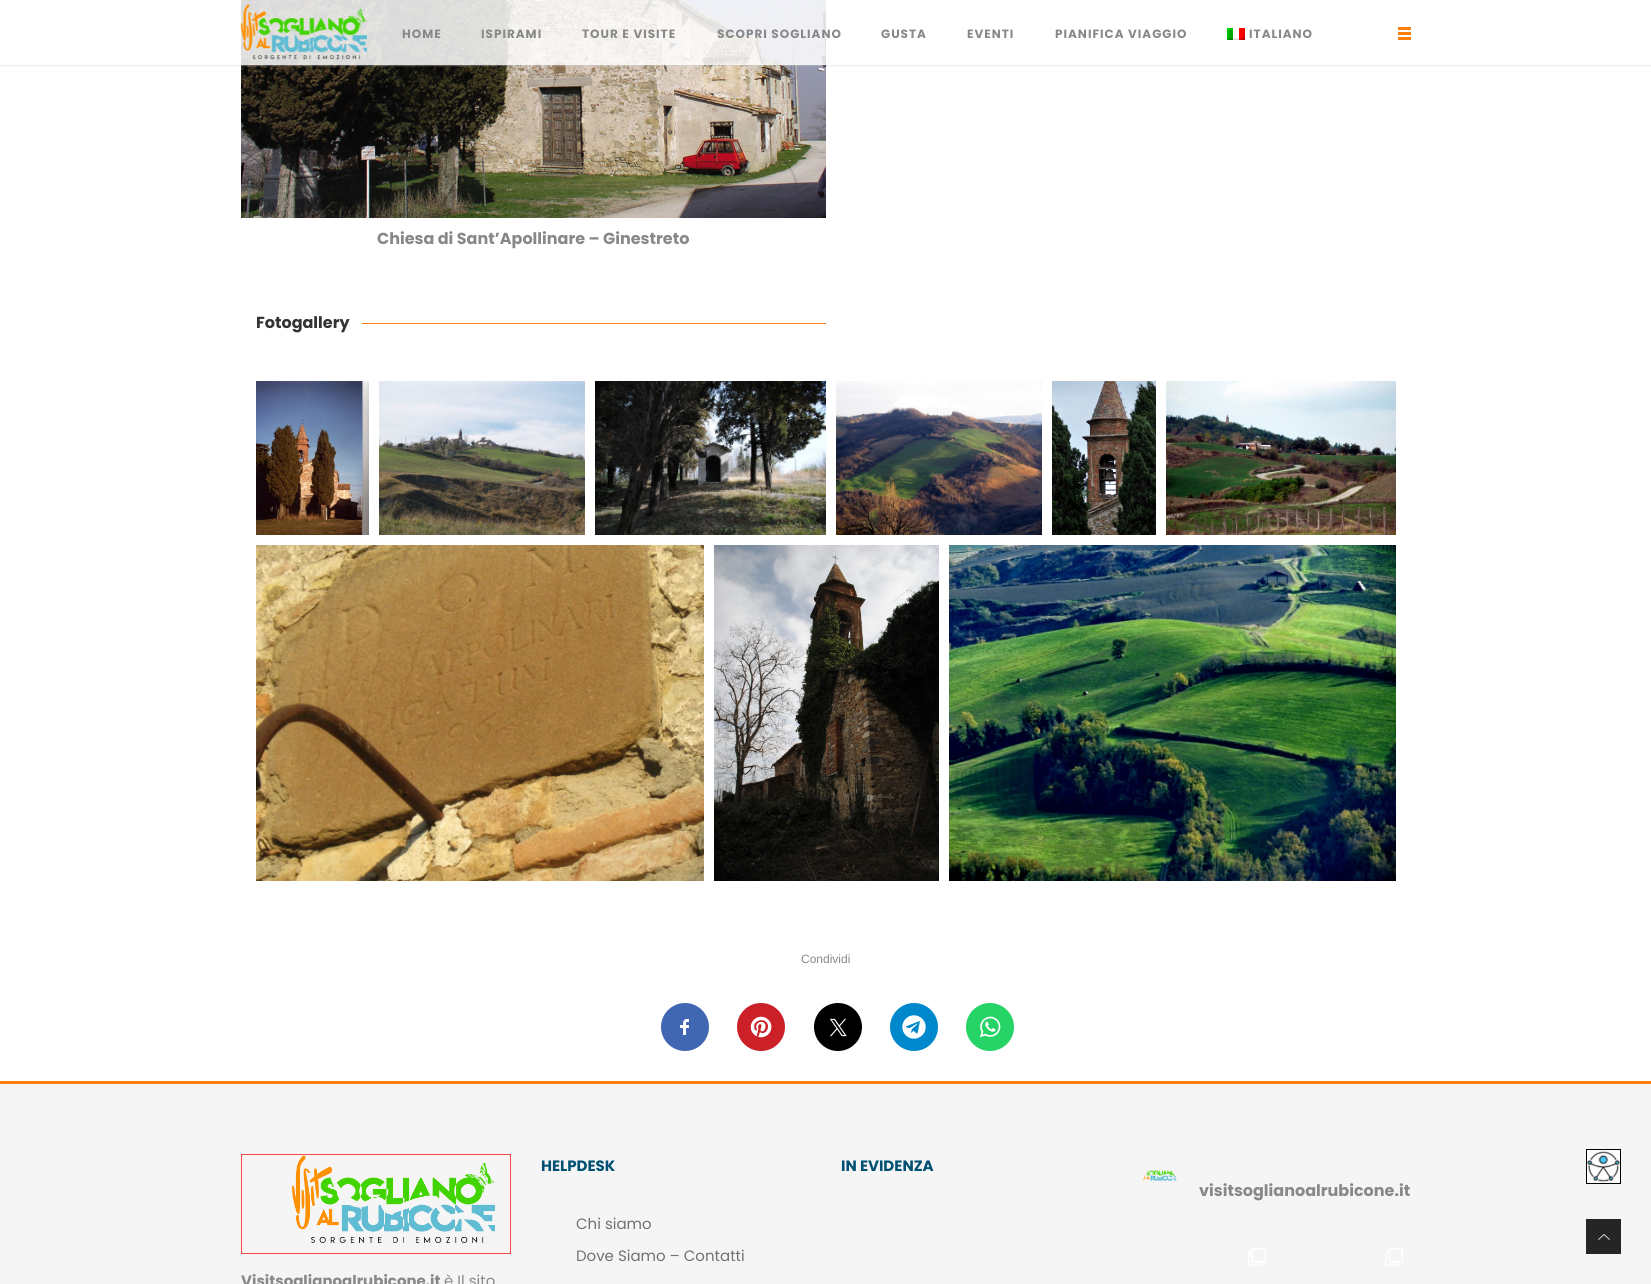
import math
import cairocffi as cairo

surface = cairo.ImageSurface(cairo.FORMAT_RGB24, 1651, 1284)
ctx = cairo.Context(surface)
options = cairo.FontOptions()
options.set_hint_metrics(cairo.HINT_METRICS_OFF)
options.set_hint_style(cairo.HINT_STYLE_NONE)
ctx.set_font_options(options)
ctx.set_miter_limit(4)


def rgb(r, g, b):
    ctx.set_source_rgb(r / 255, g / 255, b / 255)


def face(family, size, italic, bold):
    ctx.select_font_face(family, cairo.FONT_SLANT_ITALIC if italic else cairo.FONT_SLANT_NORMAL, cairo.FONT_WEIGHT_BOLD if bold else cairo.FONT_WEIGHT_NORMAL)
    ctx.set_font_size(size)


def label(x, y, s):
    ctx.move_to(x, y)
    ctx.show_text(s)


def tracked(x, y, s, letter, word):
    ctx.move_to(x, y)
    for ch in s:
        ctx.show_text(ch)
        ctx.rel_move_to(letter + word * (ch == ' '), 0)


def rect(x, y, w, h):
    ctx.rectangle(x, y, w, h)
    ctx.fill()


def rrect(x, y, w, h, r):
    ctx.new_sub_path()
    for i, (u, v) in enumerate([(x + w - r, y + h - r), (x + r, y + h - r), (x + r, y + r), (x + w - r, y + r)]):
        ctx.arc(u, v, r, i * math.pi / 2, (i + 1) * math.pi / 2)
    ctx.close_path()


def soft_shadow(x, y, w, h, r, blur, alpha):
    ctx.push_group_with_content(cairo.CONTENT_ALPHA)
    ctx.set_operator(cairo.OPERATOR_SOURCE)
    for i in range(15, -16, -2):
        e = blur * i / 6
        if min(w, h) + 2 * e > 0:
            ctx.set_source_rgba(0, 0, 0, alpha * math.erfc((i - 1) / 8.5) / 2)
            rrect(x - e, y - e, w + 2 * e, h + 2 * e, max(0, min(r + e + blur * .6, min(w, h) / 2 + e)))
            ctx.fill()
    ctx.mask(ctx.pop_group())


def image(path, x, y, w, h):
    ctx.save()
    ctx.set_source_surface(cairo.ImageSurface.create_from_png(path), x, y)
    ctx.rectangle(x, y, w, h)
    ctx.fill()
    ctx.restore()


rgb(255, 255, 255)
ctx.paint()
image('image2.png', 241, 0, 585, 218)
ctx.save()
ctx.rectangle(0, 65, 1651, 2)
ctx.clip()
rgb(206, 206, 206)
soft_shadow(0, 0, 1651, 65, 0, 1, 1)
ctx.restore()
ctx.set_source_rgba(1, 1, 1, 0.85)
rect(241, 0, 585, 65)
image('image0.png', 240, 4, 127, 56)
rgb(252, 127, 12)
rect(1398, 27, 13, 3)
rect(1398, 32, 13, 3)
rect(1398, 37, 13, 3)
face('Poppins', 12, 0, 1)
rgb(136, 136, 136)
tracked(402, 38, 'HOME', 1, 0)
tracked(481, 38, 'ISPIRAMI', 1, 0)
tracked(582, 38, 'TOUR E VISITE', 1, 0)
tracked(717, 38, 'SCOPRI SOGLIANO', 1, 0)
tracked(881, 38, 'GUSTA', 1, 0)
tracked(967, 38, 'EVENTI', 1, 0)
tracked(1055, 38, 'PIANIFICA VIAGGIO', 1, 0)
image('image1.png', 1227, 28, 18, 12)
tracked(1249, 38, 'ITALIANO', 1, 0)
face('Poppins', 16, 0, 1)
label(377, 244, 'Chiesa di Sant’Apollinare – Ginestreto')
rgb(51, 51, 51)
label(256, 328, 'Fotogallery')
rgb(252, 127, 12)
rect(362, 323, 464, 1)
image('image3.png', 256, 381, 113, 154)
image('image4.png', 379, 381, 206, 154)
image('image5.png', 595, 381, 231, 154)
image('image6.png', 836, 381, 206, 154)
image('image7.png', 1052, 381, 104, 154)
image('image8.png', 1166, 381, 230, 154)
image('image9.png', 256, 545, 448, 336)
image('image10.png', 714, 545, 225, 336)
image('image11.png', 949, 545, 447, 336)
face('Liberation Sans', 12, 0, 0)
rgb(136, 136, 136)
label(801, 963, 'Condividi')
rgb(66, 103, 178)
ctx.new_path()
ctx.arc(685, 1027, 24, 0, 2 * math.pi)
ctx.fill()
image('image12.png', 680, 1019, 9, 16)
rgb(203, 32, 39)
ctx.arc(761, 1027, 24, 0, 2 * math.pi)
ctx.fill()
image('image13.png', 750, 1016, 22, 22)
rgb(0, 0, 0)
ctx.arc(838, 1027, 24, 0, 2 * math.pi)
ctx.fill()
image('image14.png', 830, 1018, 17, 19)
rgb(0, 136, 204)
ctx.arc(914, 1027, 24, 0, 2 * math.pi)
ctx.fill()
image('image15.png', 902, 1015, 24, 24)
rgb(37, 211, 102)
ctx.arc(990, 1027, 24, 0, 2 * math.pi)
ctx.fill()
image('image16.png', 979, 1016, 22, 22)
rgb(245, 245, 245)
rect(0, 1084, 1651, 200)
rgb(252, 127, 12)
rect(0, 1081, 1651, 3)
face('Poppins', 15, 0, 1)
rgb(0, 80, 115)
label(541, 1171, 'HELPDESK')
face('Poppins', 15, 0, 0)
rgb(113, 113, 113)
label(576, 1229, 'Chi siamo')
label(576, 1261, 'Dove Siamo – Contatti')
face('Poppins', 15, 0, 1)
rgb(0, 80, 115)
label(841, 1171, 'IN EVIDENZA')
image('image17.png', 1143, 1170, 35, 13)
face('Poppins', 16, 0, 1)
rgb(136, 136, 136)
label(1199, 1196, 'visitsoglianoalrubicone.it')
image('image18.png', 1248, 1248, 18, 18)
image('image18.png', 1385, 1248, 18, 18)
ctx.rectangle(241.5, 1154.5, 269, 99)
rgb(252, 72, 72)
ctx.set_line_width(1)
ctx.stroke()
image('image19.png', 292, 1155, 203, 88)
face('Poppins', 15, 0, 1)
rgb(136, 136, 136)
label(241, 1286, 'Visitsoglianoalrubicone.it')
face('Poppins', 15, 0, 0)
label(444, 1286, 'è Il sito')
rgb(253, 253, 253)
ctx.rectangle(1586.5, 1149.5, 34, 34)
ctx.fill_preserve()
rgb(0, 0, 0)
ctx.stroke()
image('image20.png', 1586, 1151, 34, 31)
image('image21.png', 1586, 1219, 35, 35)
surface.write_to_png('render.png')
